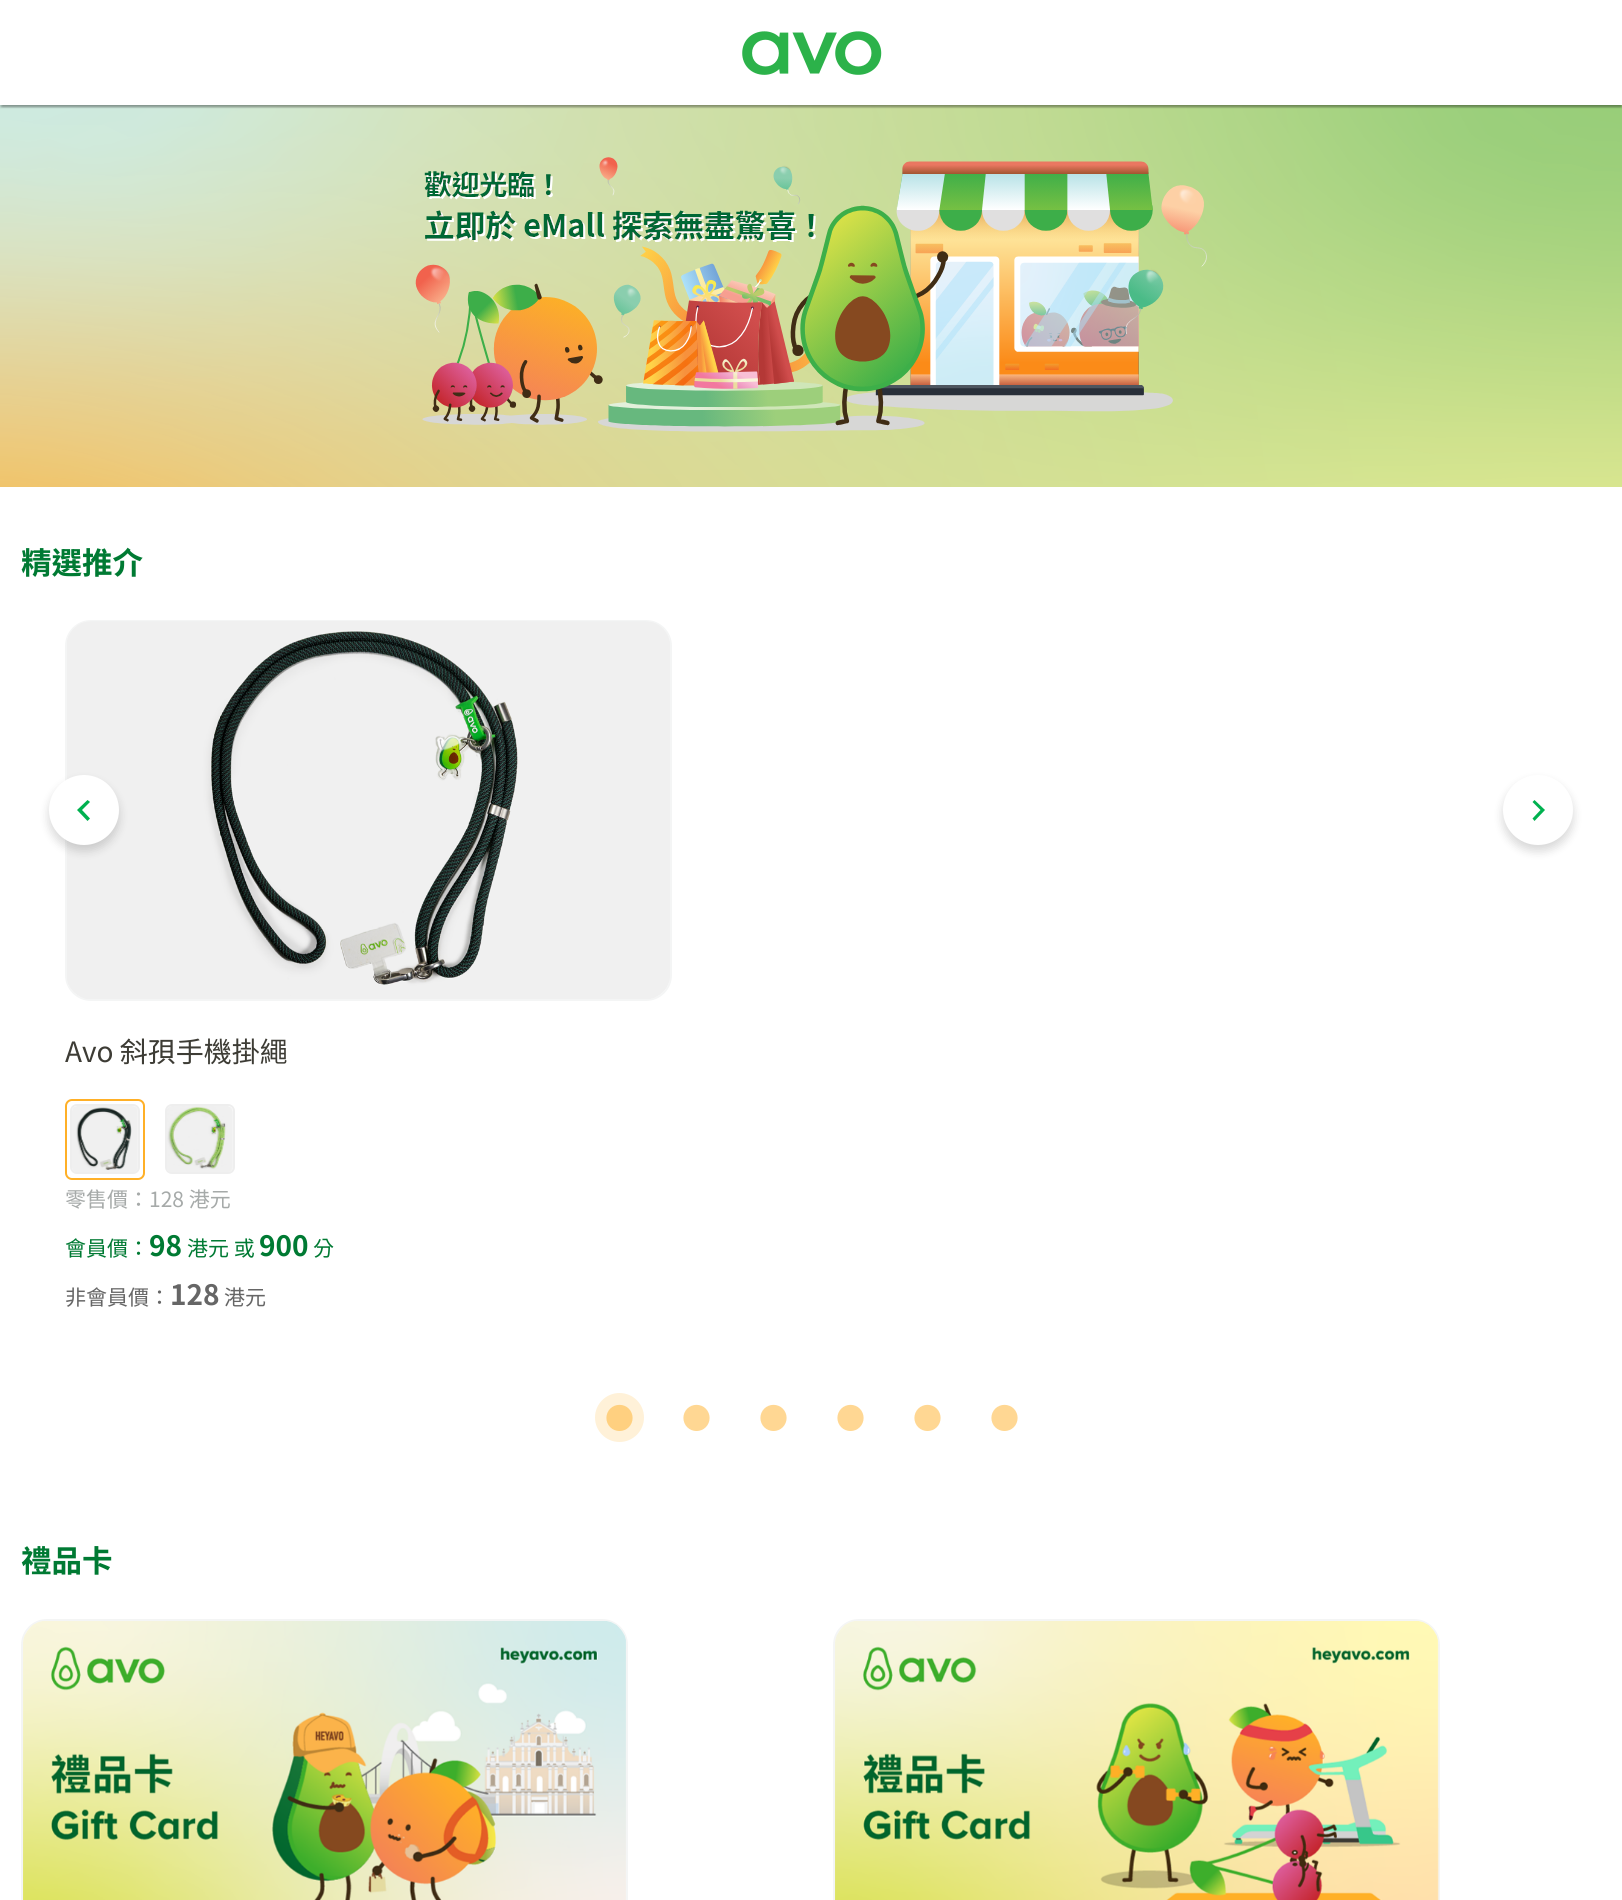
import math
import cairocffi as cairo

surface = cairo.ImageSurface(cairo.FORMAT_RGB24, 1622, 1900)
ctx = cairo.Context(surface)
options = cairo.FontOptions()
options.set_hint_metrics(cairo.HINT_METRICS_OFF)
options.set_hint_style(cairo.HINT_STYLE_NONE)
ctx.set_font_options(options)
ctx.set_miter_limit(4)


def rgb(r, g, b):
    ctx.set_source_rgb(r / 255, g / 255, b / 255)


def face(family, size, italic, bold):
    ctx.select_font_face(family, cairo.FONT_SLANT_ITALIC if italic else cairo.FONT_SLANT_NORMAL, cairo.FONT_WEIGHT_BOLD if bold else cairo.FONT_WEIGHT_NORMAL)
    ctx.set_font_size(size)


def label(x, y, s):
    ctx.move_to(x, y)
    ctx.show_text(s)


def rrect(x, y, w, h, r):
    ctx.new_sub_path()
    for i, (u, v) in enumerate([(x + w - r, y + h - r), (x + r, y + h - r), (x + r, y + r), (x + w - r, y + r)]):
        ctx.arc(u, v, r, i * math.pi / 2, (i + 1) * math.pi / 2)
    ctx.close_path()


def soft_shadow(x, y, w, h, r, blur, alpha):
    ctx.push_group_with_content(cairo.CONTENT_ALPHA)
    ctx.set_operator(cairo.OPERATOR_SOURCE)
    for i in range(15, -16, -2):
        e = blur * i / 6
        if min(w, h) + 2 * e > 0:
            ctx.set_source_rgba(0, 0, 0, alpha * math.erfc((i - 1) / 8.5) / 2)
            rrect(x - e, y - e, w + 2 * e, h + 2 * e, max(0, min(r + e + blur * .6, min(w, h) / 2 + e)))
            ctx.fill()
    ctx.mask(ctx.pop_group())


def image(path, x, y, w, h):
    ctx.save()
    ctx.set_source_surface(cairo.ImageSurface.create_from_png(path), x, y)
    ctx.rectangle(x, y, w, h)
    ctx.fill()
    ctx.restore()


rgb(255, 255, 255)
ctx.paint()
image('image1.png', 0, 105, 1622, 382)
ctx.save()
ctx.rectangle(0, 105, 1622, 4)
ctx.clip()
rgb(0, 0, 0)
soft_shadow(0, 2, 1622, 105, 0, 2.5, 0.12)
ctx.restore()
ctx.save()
ctx.rectangle(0, 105, 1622, 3)
ctx.clip()
rgb(0, 0, 0)
soft_shadow(0, 2, 1622, 105, 0, 1, 0.14)
ctx.restore()
ctx.save()
ctx.rectangle(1, 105, 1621, 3)
ctx.clip()
rgb(0, 0, 0)
soft_shadow(2, 5, 1619, 102, 0, 1, 0.2)
ctx.restore()
image('image0.png', 742, 31, 140, 44)
image('image2.png', 415, 157, 792, 275)
face('Noto Sans TC', 30.5, 0, 1)
rgb(0, 122, 51)
label(21, 574, '精選推介')
rrect(66, 621, 605, 379, 25)
rgb(244, 245, 245)
ctx.stroke()
image('image3.png', 67, 621, 603, 378)
rgb(0, 0, 0)
soft_shadow(49, 781, 70, 70, 35, 5, 0.16)
rgb(255, 255, 255)
ctx.arc(84, 810, 35, 0, 2 * math.pi)
ctx.fill()
rgb(0, 177, 79)
ctx.new_path()
ctx.move_to(90, 818.5)
ctx.line_to(82, 810)
ctx.line_to(90, 802)
ctx.line_to(87.5, 800)
ctx.line_to(77, 810)
ctx.line_to(87.5, 821)
ctx.close_path()
ctx.fill()
rgb(0, 0, 0)
soft_shadow(1503, 781, 70, 70, 35, 5, 0.16)
rgb(255, 255, 255)
ctx.arc(1538, 810, 35, 0, 2 * math.pi)
ctx.fill()
rgb(0, 177, 79)
ctx.new_path()
ctx.move_to(1532.5, 818.5)
ctx.line_to(1540.5, 810)
ctx.line_to(1532.5, 802)
ctx.line_to(1534.5, 800)
ctx.line_to(1545, 810)
ctx.line_to(1534.5, 821)
ctx.close_path()
ctx.fill()
face('Noto Sans TC', 28, 0, 0)
rgb(61, 60, 53)
label(65, 1062, 'Avo 斜孭手機掛繩')
rrect(66, 1100, 78, 79, 6)
rgb(255, 176, 39)
ctx.stroke()
rrect(71, 1105, 68, 68, 6)
rgb(238, 238, 238)
ctx.stroke()
image('image4.png', 72, 1106, 66, 66)
rrect(166, 1105, 68, 68, 6)
ctx.stroke()
image('image5.png', 167, 1106, 66, 66)
face('Noto Sans TC', 21, 0, 0)
rgb(166, 170, 169)
label(65, 1207, '零售價：128 港元')
rgb(0, 122, 51)
label(65, 1256, '會員價：')
face('Noto Sans TC', 28, 0, 1)
label(149, 1256, '98')
face('Noto Sans TC', 21, 0, 0)
label(187, 1256, '港元 或')
face('Noto Sans TC', 28, 0, 1)
label(259, 1256, '900')
face('Noto Sans TC', 21, 0, 0)
label(313, 1256, '分')
rgb(102, 102, 102)
label(65, 1305, '非會員價：')
face('Noto Sans TC', 28, 0, 1)
label(170, 1305, '128')
face('Noto Sans TC', 21, 0, 0)
label(224, 1305, '港元')
rgb(255, 241, 216)
ctx.new_path()
ctx.arc(619.5, 1417.5, 24.5, 0, 2 * math.pi)
ctx.fill()
image('image6.png', 606, 1404, 27, 27)
image('image7.png', 683, 1404, 27, 27)
image('image7.png', 760, 1404, 27, 27)
image('image7.png', 837, 1404, 27, 27)
image('image7.png', 914, 1404, 27, 27)
image('image7.png', 991, 1404, 27, 27)
face('Noto Sans TC', 30.5, 0, 1)
rgb(0, 122, 51)
label(21, 1572, '禮品卡')
rrect(22, 1620, 605, 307, 25)
rgb(244, 245, 245)
ctx.stroke()
image('image8.png', 23, 1621, 603, 279)
rrect(834, 1620, 605, 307, 25)
ctx.stroke()
image('image9.png', 835, 1621, 604, 279)
surface.write_to_png('render.png')
